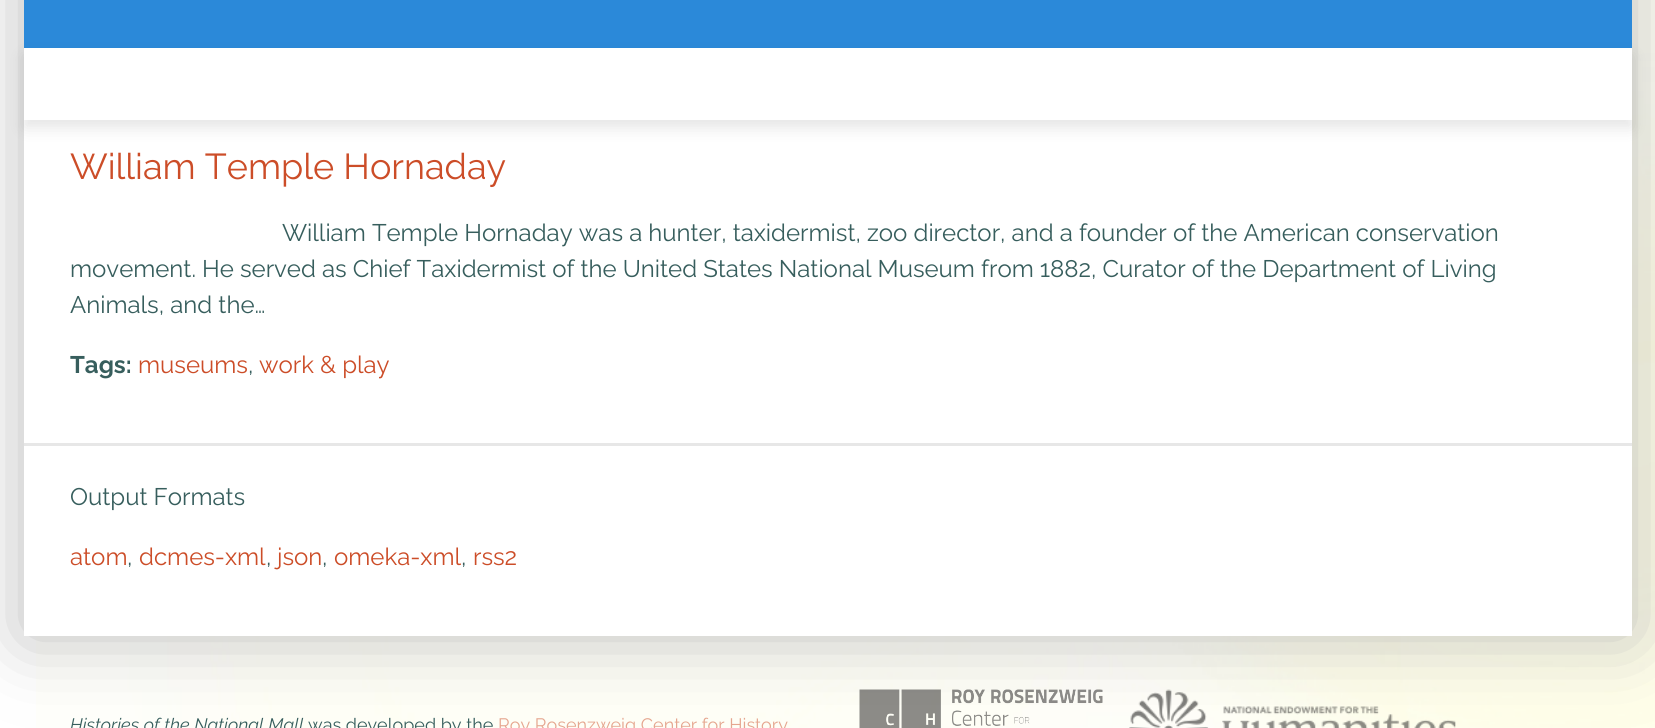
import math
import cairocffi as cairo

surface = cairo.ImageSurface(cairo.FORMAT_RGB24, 1655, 728)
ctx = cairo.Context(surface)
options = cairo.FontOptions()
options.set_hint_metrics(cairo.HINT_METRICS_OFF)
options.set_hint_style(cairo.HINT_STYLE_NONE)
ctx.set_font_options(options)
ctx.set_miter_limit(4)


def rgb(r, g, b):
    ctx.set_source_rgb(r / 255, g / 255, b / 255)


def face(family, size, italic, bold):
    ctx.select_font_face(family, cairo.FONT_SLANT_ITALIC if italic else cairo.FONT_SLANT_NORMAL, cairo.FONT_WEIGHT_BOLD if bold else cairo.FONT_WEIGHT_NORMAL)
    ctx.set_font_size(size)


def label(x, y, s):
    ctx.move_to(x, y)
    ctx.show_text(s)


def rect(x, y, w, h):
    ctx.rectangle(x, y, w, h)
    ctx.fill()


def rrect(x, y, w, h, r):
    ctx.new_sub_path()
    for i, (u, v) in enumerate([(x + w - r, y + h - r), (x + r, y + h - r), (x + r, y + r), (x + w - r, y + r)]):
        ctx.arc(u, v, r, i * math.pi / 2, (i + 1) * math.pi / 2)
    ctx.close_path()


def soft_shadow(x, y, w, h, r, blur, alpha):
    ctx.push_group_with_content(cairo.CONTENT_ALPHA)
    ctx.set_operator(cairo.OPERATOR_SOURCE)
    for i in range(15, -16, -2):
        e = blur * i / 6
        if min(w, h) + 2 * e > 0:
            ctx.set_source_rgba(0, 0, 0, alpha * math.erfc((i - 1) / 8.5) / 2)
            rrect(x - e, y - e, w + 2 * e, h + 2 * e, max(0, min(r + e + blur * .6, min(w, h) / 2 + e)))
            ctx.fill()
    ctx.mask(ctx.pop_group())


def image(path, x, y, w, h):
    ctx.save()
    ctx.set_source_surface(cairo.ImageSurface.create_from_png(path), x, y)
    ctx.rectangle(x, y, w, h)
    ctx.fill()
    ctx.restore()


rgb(255, 255, 255)
ctx.paint()
image('image0.png', 36, 0, 1619, 728)
rgb(187, 187, 187)
soft_shadow(24, -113, 1608, 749, 0, 37.5, 1)
rgb(255, 255, 255)
rect(24, 48, 1608, 588)
rgb(43, 137, 217)
rect(24, 0, 1608, 48)
ctx.save()
ctx.set_fill_rule(cairo.FILL_RULE_EVEN_ODD)
ctx.new_path()
ctx.move_to(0, 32)
ctx.line_to(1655, 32)
ctx.line_to(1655, 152)
ctx.line_to(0, 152)
ctx.close_path()
ctx.move_to(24, 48)
ctx.line_to(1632, 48)
ctx.line_to(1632, 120)
ctx.line_to(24, 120)
ctx.close_path()
ctx.clip()
rgb(0, 0, 0)
soft_shadow(24, 56, 1608, 72, 0, 7.5, 0.1)
ctx.restore()
face('Raleway', 36, 0, 0)
rgb(204, 77, 40)
label(70, 179, 'William Temple Hornaday')
face('Raleway', 24, 0, 0)
rgb(55, 94, 93)
label(282, 241, 'William Temple Hornaday was a hunter, taxidermist, zoo director, and a founder of the American conservation')
label(70, 277, 'movement. He served as Chief Taxidermist of the United States National Museum from 1882, Curator of the Department of Living')
label(70, 313, 'Animals, and the…')
face('Raleway', 24, 0, 1)
label(70, 373, 'Tags:')
face('Raleway', 24, 0, 0)
rgb(204, 77, 40)
label(138, 373, 'museums')
rgb(55, 94, 93)
label(248, 373, ',')
rgb(204, 77, 40)
label(259, 373, 'work & play')
rgb(231, 231, 231)
rect(24, 443, 1608, 3)
rgb(55, 94, 93)
label(70, 505, 'Output Formats')
rgb(204, 77, 40)
label(70, 565, 'atom')
rgb(55, 94, 93)
label(127, 565, ',')
rgb(204, 77, 40)
label(139, 565, 'dcmes-xml')
rgb(55, 94, 93)
label(266, 565, ',')
rgb(204, 77, 40)
label(277, 565, 'json')
rgb(55, 94, 93)
label(322, 565, ',')
rgb(204, 77, 40)
label(334, 565, 'omeka-xml')
rgb(55, 94, 93)
label(461, 565, ',')
rgb(204, 77, 40)
label(473, 565, 'rss2')
face('Raleway', 18, 1, 0)
rgb(55, 94, 93)
label(70, 731, 'Histories of the National Mall')
face('Raleway', 18, 0, 0)
label(308, 731, 'was developed by the')
rgb(229, 166, 143)
label(498, 731, 'Roy Rosenzweig Center for History')
image('image1.png', 859, 689, 244, 39)
image('image2.png', 1129, 689, 327, 39)
surface.write_to_png('render.png')
